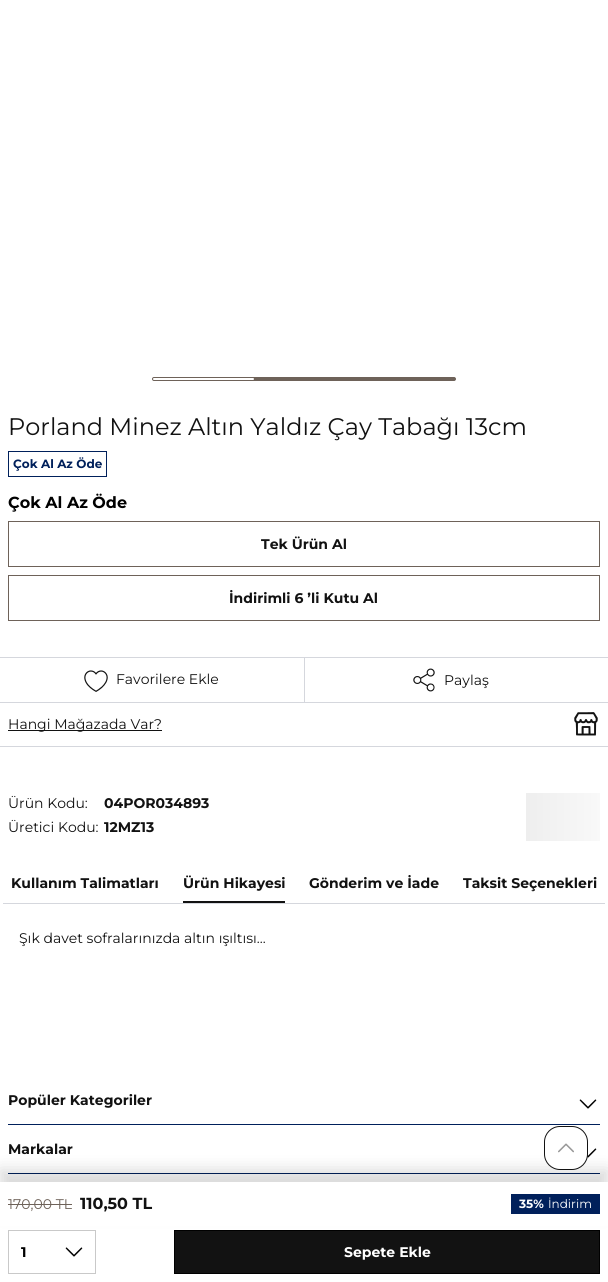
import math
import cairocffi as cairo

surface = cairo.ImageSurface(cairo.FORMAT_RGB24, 608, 1282)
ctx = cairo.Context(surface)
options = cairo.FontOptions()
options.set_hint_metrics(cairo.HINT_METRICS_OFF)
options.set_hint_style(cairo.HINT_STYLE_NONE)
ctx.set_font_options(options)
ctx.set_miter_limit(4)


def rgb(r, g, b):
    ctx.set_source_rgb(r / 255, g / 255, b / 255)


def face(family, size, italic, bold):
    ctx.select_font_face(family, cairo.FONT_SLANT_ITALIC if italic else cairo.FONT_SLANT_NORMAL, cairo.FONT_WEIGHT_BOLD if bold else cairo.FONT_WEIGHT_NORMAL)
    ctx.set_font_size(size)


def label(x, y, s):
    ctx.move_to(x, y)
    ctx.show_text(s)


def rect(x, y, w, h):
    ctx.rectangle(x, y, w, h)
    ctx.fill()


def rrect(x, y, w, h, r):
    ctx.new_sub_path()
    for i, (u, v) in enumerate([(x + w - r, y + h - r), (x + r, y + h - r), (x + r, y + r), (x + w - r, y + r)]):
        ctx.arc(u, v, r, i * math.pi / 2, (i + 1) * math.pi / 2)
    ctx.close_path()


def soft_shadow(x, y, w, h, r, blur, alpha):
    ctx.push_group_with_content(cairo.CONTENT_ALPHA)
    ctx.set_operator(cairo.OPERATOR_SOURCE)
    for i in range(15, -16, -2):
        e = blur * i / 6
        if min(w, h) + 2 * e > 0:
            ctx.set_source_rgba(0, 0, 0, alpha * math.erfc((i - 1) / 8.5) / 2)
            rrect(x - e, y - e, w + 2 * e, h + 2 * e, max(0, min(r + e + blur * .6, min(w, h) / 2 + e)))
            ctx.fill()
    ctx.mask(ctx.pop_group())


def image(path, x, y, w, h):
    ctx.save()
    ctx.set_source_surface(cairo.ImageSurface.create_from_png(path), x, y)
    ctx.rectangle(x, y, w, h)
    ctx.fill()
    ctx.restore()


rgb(255, 255, 255)
ctx.paint()
rgb(110, 98, 89)
rrect(152.5, 377.5, 303, 3, 1.5)
ctx.fill_preserve()
ctx.set_line_width(1)
ctx.stroke()
rgb(255, 255, 255)
rrect(153, 378, 101, 2, 1)
ctx.fill()
face('Montserrat', 24, 0, 0)
rgb(18, 18, 18)
label(8, 435, 'Porland Minez Altın Yaldız Çay Tabağı 13cm')
ctx.rectangle(8.5, 451.5, 98, 25)
rgb(0, 32, 91)
ctx.stroke()
face('Montserrat', 12, 0, 1)
label(13, 468, 'Çok Al Az Öde')
face('Montserrat', 16, 0, 1)
rgb(0, 0, 0)
label(8, 508, 'Çok Al Az Öde')
ctx.rectangle(8.5, 521.5, 591, 45)
rgb(110, 98, 89)
ctx.stroke()
face('Montserrat', 14, 0, 1)
rgb(18, 18, 18)
label(261, 549, 'Tek Ürün Al')
ctx.rectangle(8.5, 575.5, 591, 45)
rgb(110, 98, 89)
ctx.stroke()
rgb(18, 18, 18)
label(229, 603, 'İndirimli 6 ’li Kutu Al')
rgb(213, 215, 221)
rect(0, 657, 608, 1)
rect(0, 702, 608, 1)
image('image0.png', 84, 670, 24, 22)
face('Montserrat', 14, 0, 0)
rgb(18, 18, 18)
label(116, 684, 'Favorilere Ekle')
rgb(213, 215, 221)
rect(304, 658, 1, 44)
image('image1.png', 413, 668, 22, 24)
rgb(18, 18, 18)
label(444, 685, 'Paylaş')
rgb(213, 215, 221)
rect(0, 746, 608, 1)
rgb(18, 18, 18)
rect(8, 730, 154, 1)
label(8, 729, 'Hangi Mağazada Var?')
image('image2.png', 574, 712, 24, 24)
label(8, 808, 'Ürün Kodu:')
face('Montserrat', 14, 0, 1)
label(104, 808, '04POR034893')
face('Montserrat', 14, 0, 0)
label(8, 832, 'Üretici Kodu:')
face('Montserrat', 14, 0, 1)
label(104, 832, '12MZ13')
gradient = cairo.LinearGradient(526, 817, 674, 817)
gradient.add_color_stop_rgba(0, 0.933, 0.933, 0.933, 1)
gradient.add_color_stop_rgba(0.5, 0.976, 0.976, 0.976, 1)
gradient.add_color_stop_rgba(1, 0.933, 0.933, 0.933, 1)
ctx.set_source(gradient)
rect(526, 793, 74, 48)
ctx.rectangle(8.5, 1230.5, 87, 43)
rgb(201, 201, 201)
ctx.stroke()
rgb(18, 18, 18)
ctx.rectangle(174.5, 1230.5, 425, 43)
ctx.fill_preserve()
rgb(0, 0, 0)
ctx.stroke()
rgb(0, 32, 91)
rect(8, 1173, 592, 1)
image('image4.png', 587, 1148, 10, 10)
rgb(0, 0, 0)
soft_shadow(0, 1170, 608, 44, 0, 8, 0.15)
rgb(255, 255, 255)
rect(0, 1182, 608, 44)
face('Montserrat', 14, 0, 0)
rgb(110, 98, 89)
label(8, 1209, '170,00 TL')
rect(8, 1204, 64, 1)
face('Montserrat', 16, 0, 1)
rgb(18, 18, 18)
label(80, 1209, '110,50 TL')
rgb(0, 32, 91)
rect(511, 1194, 89, 20)
face('Montserrat', 12, 0, 1)
rgb(255, 255, 255)
label(519, 1208, '35%')
face('Montserrat', 12, 0, 0)
label(548, 1208, 'İndirim')
face('Montserrat', 14, 0, 1)
rgb(0, 0, 0)
label(21, 1257, '1')
image('image3.png', 65, 1247, 18, 10)
rgb(255, 255, 255)
label(344, 1257, 'Sepete Ekle')
rgb(18, 18, 18)
label(11, 888, 'Kullanım Talimatları')
rect(183, 901, 102, 2)
label(183, 888, 'Ürün Hikayesi')
label(309, 888, 'Gönderim ve İade')
label(463, 888, 'Taksit Seçenekleri')
rgb(213, 215, 221)
rect(3, 903, 602, 1)
face('Montserrat', 14, 0, 0)
rgb(18, 18, 18)
label(19, 943, 'Şık davet sofralarınızda altın ışıltısı...')
rgb(0, 32, 91)
rect(8, 1124, 592, 1)
face('Montserrat', 14, 0, 1)
rgb(18, 18, 18)
label(8, 1105, 'Popüler Kategoriler')
image('image3.png', 579, 1099, 18, 10)
label(8, 1154, 'Markalar')
rgb(255, 255, 255)
rrect(544.5, 1126.5, 43, 43, 15.5)
ctx.fill_preserve()
rgb(18, 18, 18)
ctx.stroke()
image('image5.png', 558, 1143, 16, 10)
surface.write_to_png('render.png')
